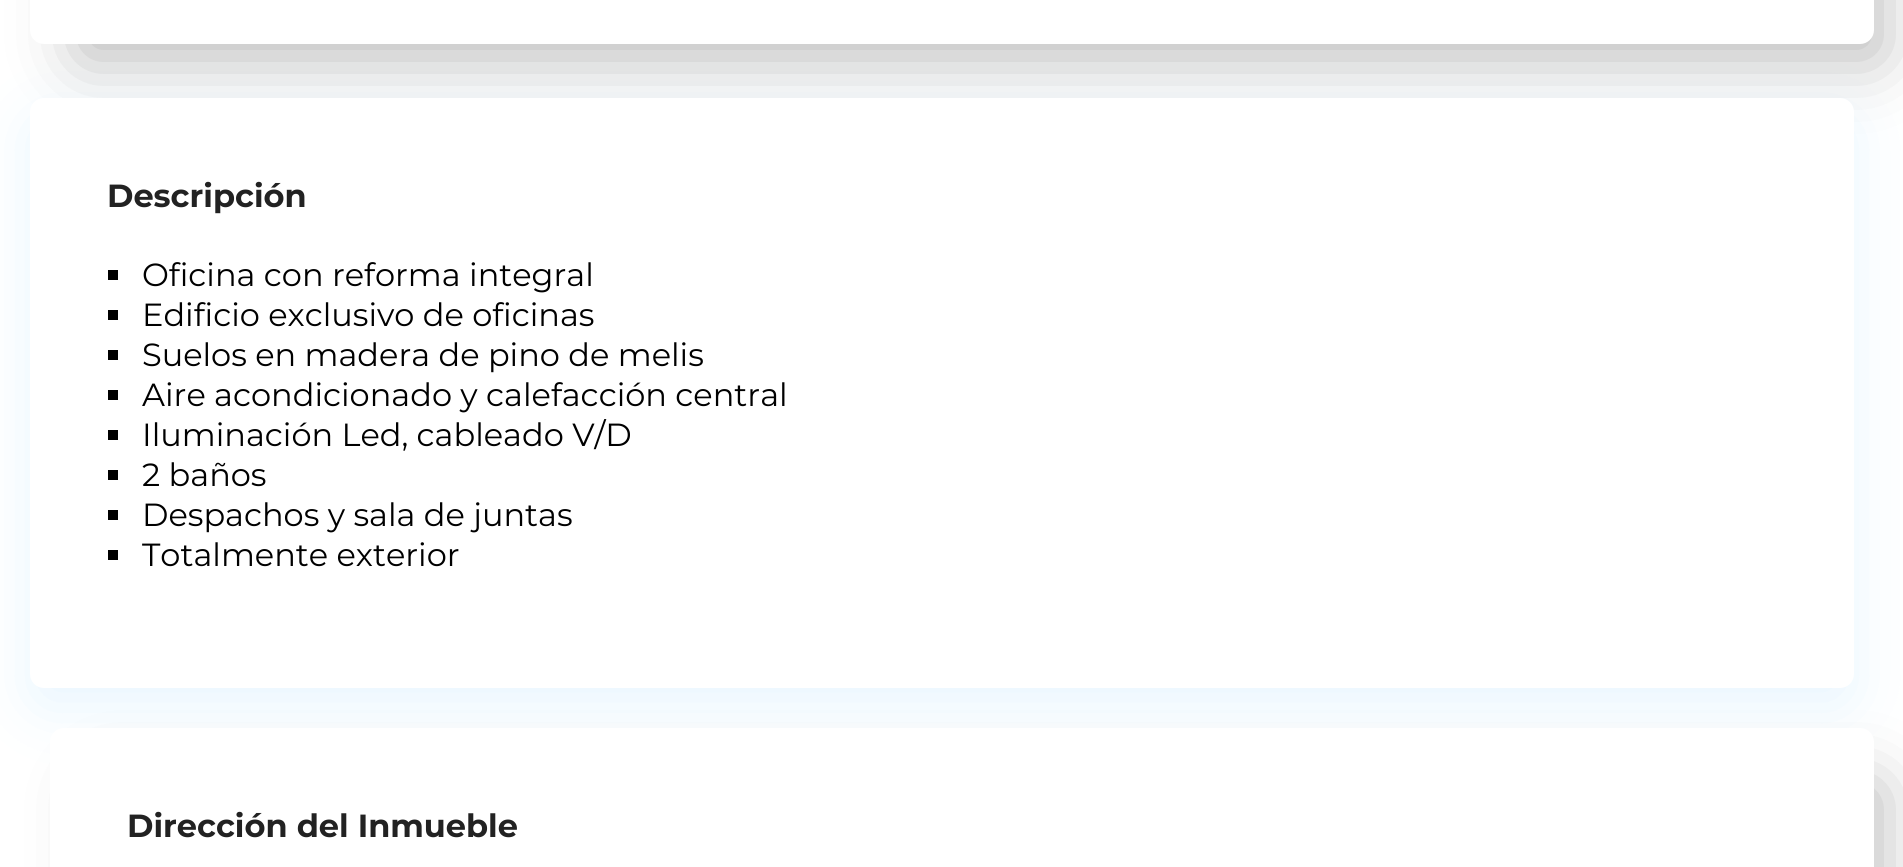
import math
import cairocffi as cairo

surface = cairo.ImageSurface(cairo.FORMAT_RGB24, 1903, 867)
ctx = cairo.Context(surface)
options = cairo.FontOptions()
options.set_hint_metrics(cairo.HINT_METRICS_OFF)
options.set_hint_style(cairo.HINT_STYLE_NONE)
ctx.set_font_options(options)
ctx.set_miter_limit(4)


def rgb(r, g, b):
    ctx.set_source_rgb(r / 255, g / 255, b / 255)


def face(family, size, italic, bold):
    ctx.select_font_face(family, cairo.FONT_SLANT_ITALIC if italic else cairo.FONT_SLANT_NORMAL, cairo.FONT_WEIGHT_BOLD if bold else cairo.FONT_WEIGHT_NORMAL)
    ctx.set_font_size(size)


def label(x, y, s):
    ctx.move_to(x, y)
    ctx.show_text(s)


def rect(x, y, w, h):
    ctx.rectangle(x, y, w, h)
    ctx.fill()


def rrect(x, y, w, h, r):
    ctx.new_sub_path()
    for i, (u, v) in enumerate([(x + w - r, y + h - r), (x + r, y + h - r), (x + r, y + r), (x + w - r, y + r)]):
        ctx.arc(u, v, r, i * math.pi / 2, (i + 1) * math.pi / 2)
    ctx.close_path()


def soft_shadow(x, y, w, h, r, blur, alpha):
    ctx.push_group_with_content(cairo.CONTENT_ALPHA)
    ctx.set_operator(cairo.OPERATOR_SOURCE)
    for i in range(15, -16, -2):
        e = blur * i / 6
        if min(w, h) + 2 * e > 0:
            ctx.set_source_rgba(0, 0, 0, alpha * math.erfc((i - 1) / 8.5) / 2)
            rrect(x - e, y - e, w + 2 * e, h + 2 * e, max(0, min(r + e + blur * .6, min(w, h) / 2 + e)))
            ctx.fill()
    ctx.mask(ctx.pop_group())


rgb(255, 255, 255)
ctx.paint()
rgb(0, 0, 0)
soft_shadow(82, -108, 1796, 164, 0, 36, 0.29)
rgb(255, 255, 255)
rrect(30, -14, 1844, 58, 14)
ctx.fill()
rgb(7, 152, 255)
soft_shadow(30, 118, 1824, 590, 14, 31, 0.09)
rgb(255, 255, 255)
rrect(30, 98, 1824, 590, 14)
ctx.fill()
face('Montserrat', 32, 0, 1)
rgb(34, 34, 34)
label(107, 207, 'Descripción')
rgb(0, 0, 0)
rect(108, 270, 10, 10)
face('Montserrat', 32, 0, 0)
label(142, 286, 'Oficina con reforma integral')
rect(108, 310, 10, 10)
label(142, 326, 'Edificio exclusivo de oficinas')
rect(108, 350, 10, 10)
label(142, 366, 'Suelos en madera de pino de melis')
rect(108, 390, 10, 10)
label(142, 406, 'Aire acondicionado y calefacción central')
rect(108, 430, 10, 10)
label(142, 446, 'Iluminación Led, cableado V/D')
rect(108, 470, 10, 10)
label(142, 486, '2 baños')
rect(108, 510, 10, 10)
label(142, 526, 'Despachos y sala de juntas')
rect(108, 550, 10, 10)
label(142, 566, 'Totalmente exterior')
rgb(0, 0, 0)
soft_shadow(102, 788, 1776, 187, 0, 36, 0.29)
rgb(255, 255, 255)
rrect(50, 728, 1824, 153, 14)
ctx.fill()
face('Montserrat', 32, 0, 1)
rgb(34, 34, 34)
label(127, 837, 'Dirección del Inmueble')
surface.write_to_png('render.png')
